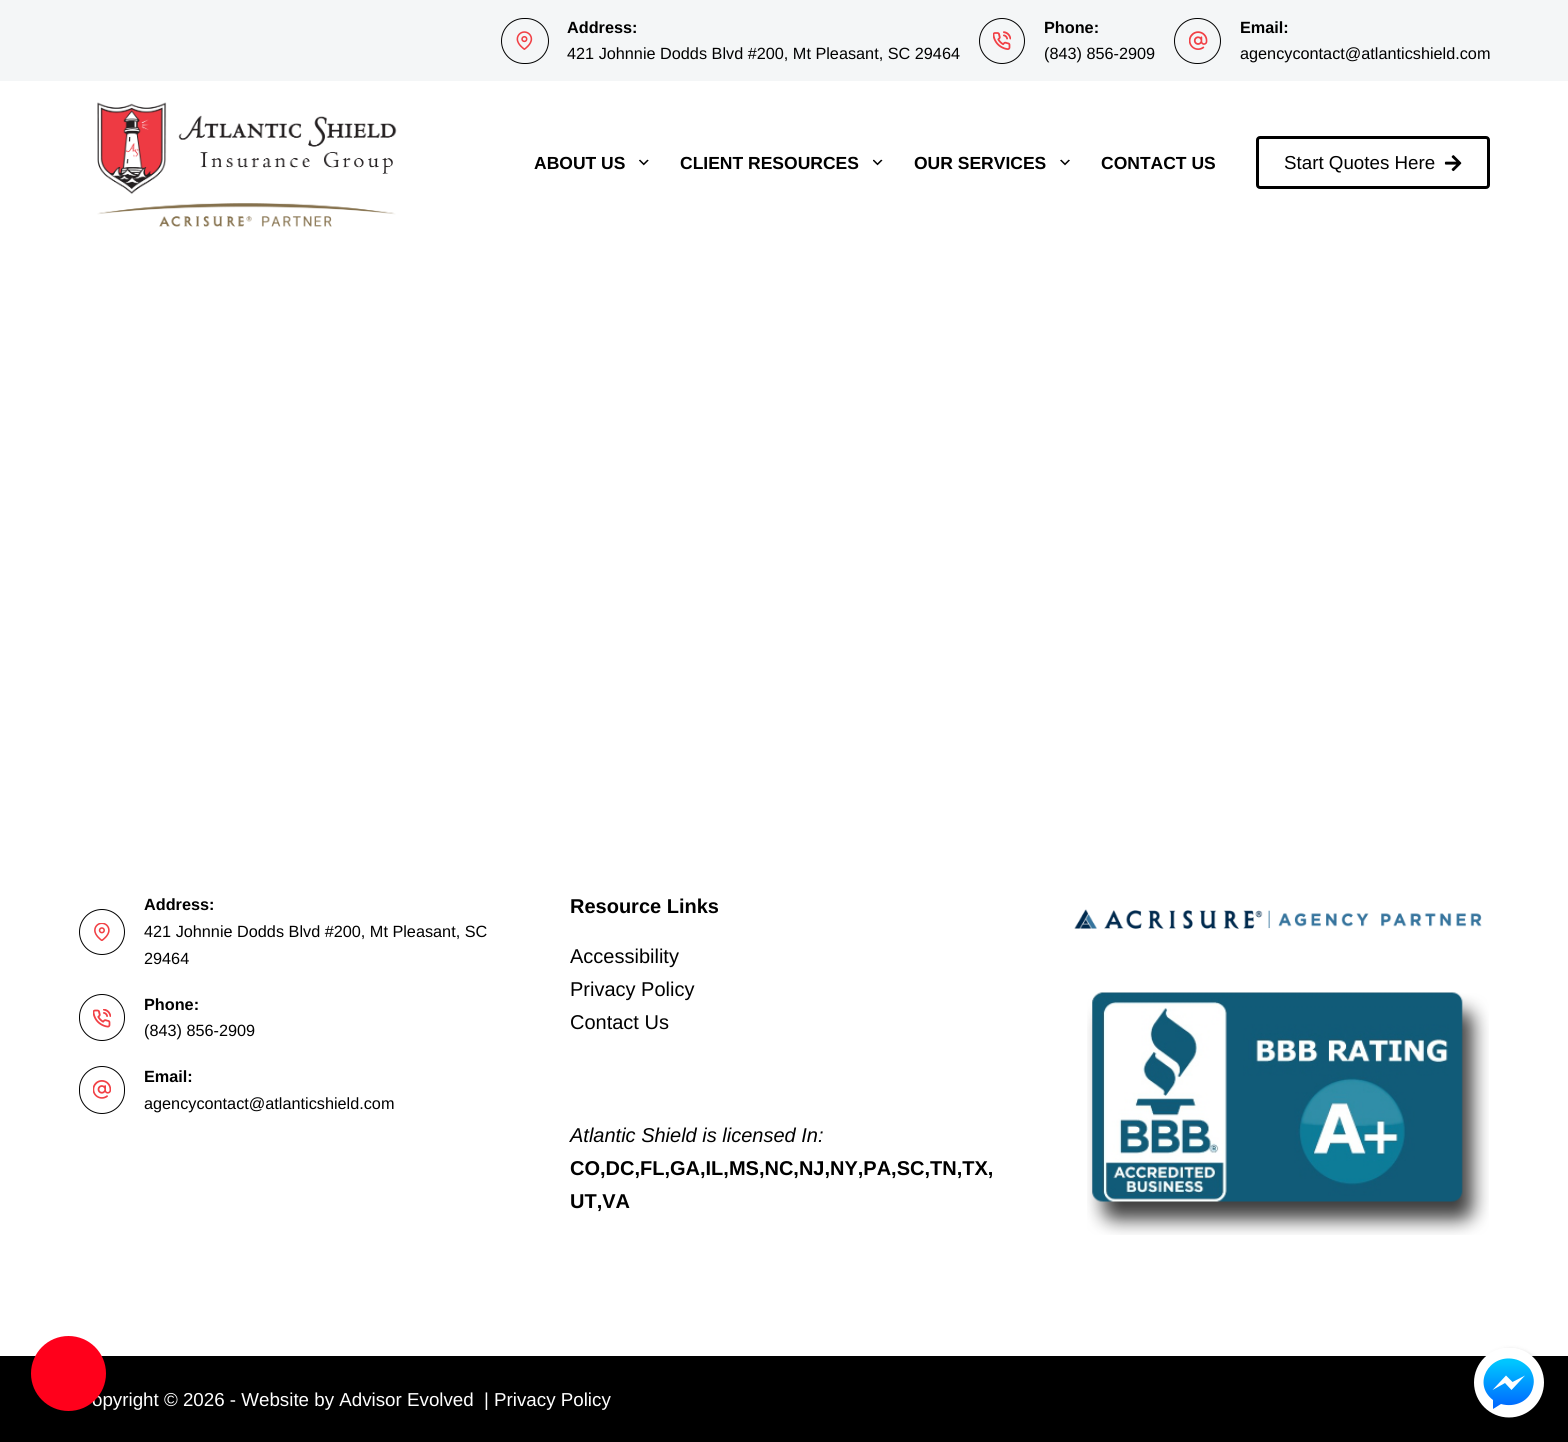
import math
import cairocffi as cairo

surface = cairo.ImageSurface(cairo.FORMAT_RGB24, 1568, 1442)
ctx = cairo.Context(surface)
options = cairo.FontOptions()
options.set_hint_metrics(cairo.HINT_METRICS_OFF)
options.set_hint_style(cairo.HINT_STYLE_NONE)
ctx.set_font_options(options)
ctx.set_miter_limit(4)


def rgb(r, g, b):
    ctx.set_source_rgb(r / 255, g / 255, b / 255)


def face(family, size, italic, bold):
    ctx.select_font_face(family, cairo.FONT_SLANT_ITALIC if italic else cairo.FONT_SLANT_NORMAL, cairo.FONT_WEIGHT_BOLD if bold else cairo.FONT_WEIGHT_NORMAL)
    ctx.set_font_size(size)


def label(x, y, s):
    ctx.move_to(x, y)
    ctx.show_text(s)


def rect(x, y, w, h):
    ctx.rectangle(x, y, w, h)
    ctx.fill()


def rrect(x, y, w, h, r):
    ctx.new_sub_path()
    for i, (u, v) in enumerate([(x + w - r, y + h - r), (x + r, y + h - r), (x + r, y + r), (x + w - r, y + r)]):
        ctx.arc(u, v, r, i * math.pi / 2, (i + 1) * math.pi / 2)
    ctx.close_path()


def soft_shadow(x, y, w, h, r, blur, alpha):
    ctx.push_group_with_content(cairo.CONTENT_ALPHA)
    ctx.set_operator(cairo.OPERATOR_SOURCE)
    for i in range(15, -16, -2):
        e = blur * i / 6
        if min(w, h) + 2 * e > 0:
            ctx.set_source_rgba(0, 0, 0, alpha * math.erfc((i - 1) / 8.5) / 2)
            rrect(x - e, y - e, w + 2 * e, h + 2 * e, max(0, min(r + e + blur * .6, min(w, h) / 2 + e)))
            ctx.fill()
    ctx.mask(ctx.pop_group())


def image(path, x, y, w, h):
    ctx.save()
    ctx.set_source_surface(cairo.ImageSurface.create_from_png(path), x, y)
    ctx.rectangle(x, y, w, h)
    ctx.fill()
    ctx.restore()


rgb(255, 255, 255)
ctx.paint()
rgb(0, 0, 0)
rect(0, 1356, 1568, 86)
face('Liberation Sans', 18.75, 0, 0)
rgb(255, 255, 255)
label(92, 1406, 'opyright © 2026 - Website by Advisor Evolved')
rgb(255, 0, 27)
ctx.new_path()
ctx.arc(68.5, 1373.5, 37.5, 0, 2 * math.pi)
ctx.fill()
rgb(244, 246, 247)
rect(0, 0, 1568, 81)
rrect(501.5, 18.5, 47, 45, 22.5)
rgb(0, 0, 0)
ctx.set_line_width(1)
ctx.stroke()
image('image0.png', 516, 31, 17, 19)
face('Liberation Sans', 16.25, 0, 1)
label(567, 33, 'Address:')
face('Liberation Sans', 16.25, 0, 0)
label(567, 59, '421 Johnnie Dodds Blvd #200, Mt Pleasant, SC 29464')
ctx.new_path()
ctx.arc(1002, 41, 22.5, 0, 2 * math.pi)
ctx.stroke()
image('image1.png', 993, 31, 18, 19)
face('Liberation Sans', 16.25, 0, 1)
label(1044, 33, 'Phone:')
face('Liberation Sans', 16.25, 0, 0)
label(1044, 59, '(843) 856-2909')
rrect(1174.5, 18.5, 46, 45, 22.5)
ctx.stroke()
image('image2.png', 1189, 31, 19, 19)
face('Liberation Sans', 16.25, 0, 1)
label(1240, 33, 'Email:')
face('Liberation Sans', 16.25, 0, 0)
label(1240, 59, 'agencycontact@atlanticshield.com')
image('image3.png', 97, 102, 300, 125)
face('Liberation Sans', 17.5, 0, 1)
label(534, 169, 'ABOUT US')
image('image4.png', 639, 159, 10, 7)
label(680, 169, 'CLIENT RESOURCES')
image('image5.png', 873, 159, 10, 7)
label(914, 169, 'OUR SERVICES')
image('image6.png', 1060, 159, 10, 7)
label(1101, 169, 'CONTACT US')
rrect(1257.5, 137.5, 231, 50, 2.5)
ctx.set_line_width(3)
ctx.stroke()
face('Liberation Sans', 18.75, 0, 0)
label(1284, 169, 'Start Quotes Here')
image('image7.png', 1444, 155, 18, 17)
ctx.arc(102, 932, 22.5, 0, 2 * math.pi)
ctx.set_line_width(1)
ctx.stroke()
image('image8.png', 94, 923, 16, 18)
face('Liberation Sans', 16.25, 0, 1)
label(144, 910, 'Address:')
face('Liberation Sans', 16.25, 0, 0)
label(144, 937, '421 Johnnie Dodds Blvd #200, Mt Pleasant, SC')
label(144, 964, '29464')
rrect(79.5, 994.5, 45, 46, 22.5)
ctx.stroke()
image('image9.png', 93, 1009, 18, 19)
face('Liberation Sans', 16.25, 0, 1)
label(144, 1010, 'Phone:')
face('Liberation Sans', 16.25, 0, 0)
label(144, 1036, '(843) 856-2909')
rrect(79.5, 1066.5, 45, 47, 22.5)
ctx.stroke()
image('image10.png', 93, 1080, 18, 19)
face('Liberation Sans', 16.25, 0, 1)
label(144, 1082, 'Email:')
face('Liberation Sans', 16.25, 0, 0)
label(144, 1109, 'agencycontact@atlanticshield.com')
face('Liberation Sans', 20, 0, 1)
label(570, 913, 'Resource Links')
face('Liberation Sans', 20, 0, 0)
label(570, 963, 'Accessibility')
label(570, 996, 'Privacy Policy')
label(570, 1029, 'Contact Us')
face('Liberation Sans', 20, 1, 0)
label(570, 1142, 'Atlantic Shield is licensed In:')
face('Liberation Sans', 20, 0, 1)
label(570, 1175, 'CO,DC,FL,GA,IL,MS,NC,NJ,NY,PA,SC,TN,TX,')
label(570, 1208, 'UT,VA')
image('image11.png', 1074, 909, 408, 20)
image('image12.png', 1087, 992, 402, 243)
face('Liberation Sans', 18.75, 0, 0)
rgb(255, 255, 255)
label(484, 1406, '| Privacy Policy')
rgb(0, 0, 0)
soft_shadow(1476, 1350, 70, 70, 35, 2.5, 0.2)
ctx.save()
ctx.rectangle(1474, 1348, 70, 70)
ctx.clip()
rgb(255, 255, 255)
ctx.arc(1509, 1382.5, 35, 0, 2 * math.pi)
ctx.fill()
ctx.restore()
gradient = cairo.LinearGradient(1509, 1362, 1509, 1407)
gradient.add_color_stop_rgba(0, 0, 0.776, 1, 1)
gradient.add_color_stop_rgba(1, 0, 0.408, 1, 1)
ctx.set_source(gradient)
ctx.new_path()
ctx.move_to(1493, 1400)
ctx.line_to(1493, 1409)
ctx.line_to(1501, 1404)
ctx.curve_to(1515, 1408, 1530, 1401, 1533, 1387)
ctx.curve_to(1535, 1380, 1533, 1374, 1530, 1369)
ctx.curve_to(1526, 1364, 1520, 1360, 1514, 1359)
ctx.curve_to(1489, 1354, 1472, 1384, 1493, 1400)
ctx.close_path()
ctx.fill()
rgb(255, 255, 255)
ctx.new_path()
ctx.move_to(1506, 1375.5)
ctx.line_to(1492.5, 1390)
ctx.line_to(1505, 1383)
ctx.line_to(1511.5, 1390)
ctx.line_to(1525, 1375.5)
ctx.line_to(1512.5, 1382)
ctx.close_path()
ctx.fill()
surface.write_to_png('render.png')
